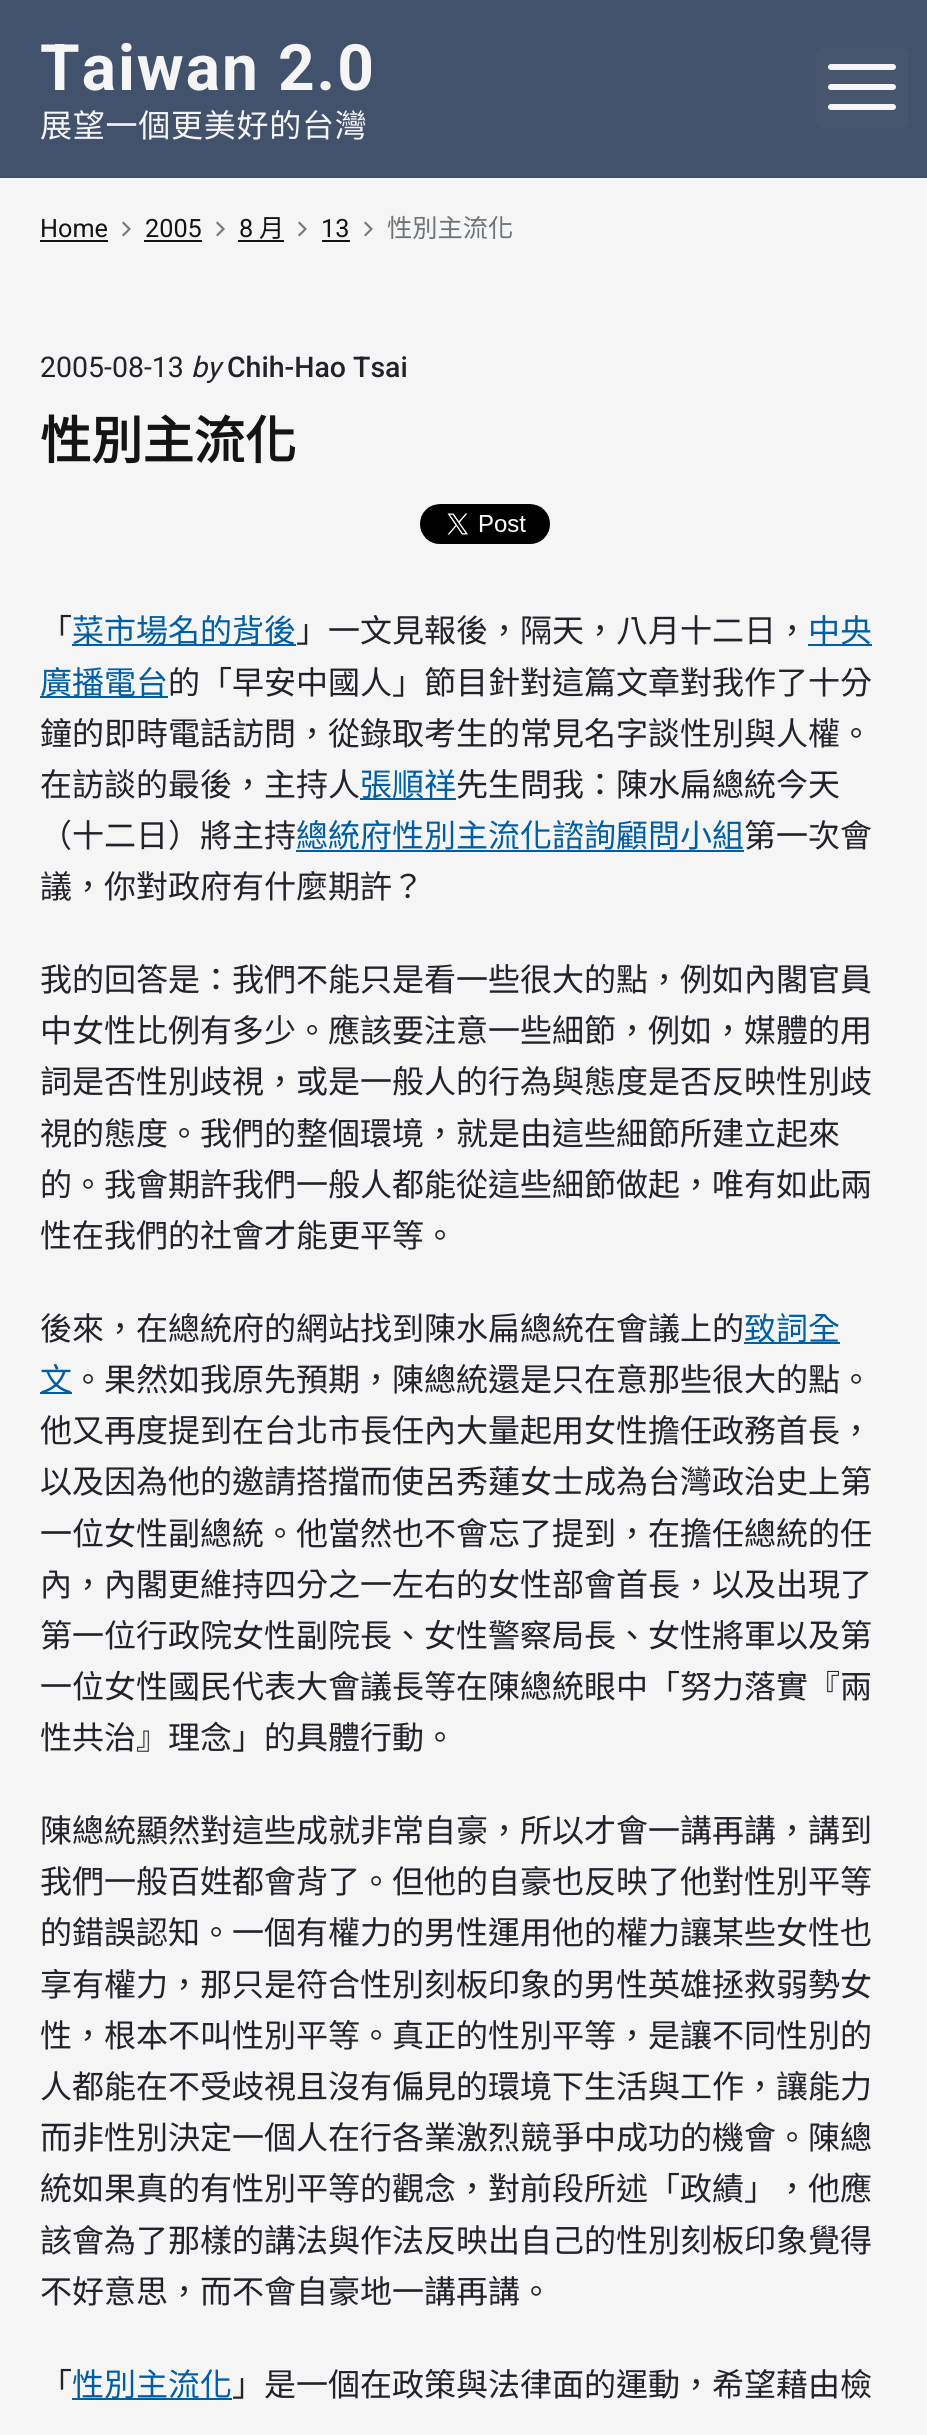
import math
import cairocffi as cairo

surface = cairo.ImageSurface(cairo.FORMAT_RGB24, 927, 2435)
ctx = cairo.Context(surface)
options = cairo.FontOptions()
options.set_hint_metrics(cairo.HINT_METRICS_OFF)
options.set_hint_style(cairo.HINT_STYLE_NONE)
ctx.set_font_options(options)
ctx.set_miter_limit(4)


def rgb(r, g, b):
    ctx.set_source_rgb(r / 255, g / 255, b / 255)


def face(family, size, italic, bold):
    ctx.select_font_face(family, cairo.FONT_SLANT_ITALIC if italic else cairo.FONT_SLANT_NORMAL, cairo.FONT_WEIGHT_BOLD if bold else cairo.FONT_WEIGHT_NORMAL)
    ctx.set_font_size(size)


def label(x, y, s):
    ctx.move_to(x, y)
    ctx.show_text(s)


def tracked(x, y, s, letter, word):
    ctx.move_to(x, y)
    for ch in s:
        ctx.show_text(ch)
        ctx.rel_move_to(letter + word * (ch == ' '), 0)


def rect(x, y, w, h):
    ctx.rectangle(x, y, w, h)
    ctx.fill()


def rrect(x, y, w, h, r):
    ctx.new_sub_path()
    for i, (u, v) in enumerate([(x + w - r, y + h - r), (x + r, y + h - r), (x + r, y + r), (x + w - r, y + r)]):
        ctx.arc(u, v, r, i * math.pi / 2, (i + 1) * math.pi / 2)
    ctx.close_path()


def image(path, x, y, w, h):
    ctx.save()
    ctx.set_source_surface(cairo.ImageSurface.create_from_png(path), x, y)
    ctx.rectangle(x, y, w, h)
    ctx.fill()
    ctx.restore()


rgb(245, 245, 245)
ctx.paint()
rgb(66, 82, 108)
rect(0, 0, 927, 176)
face('Roboto', 64, 0, 1)
rgb(245, 245, 245)
tracked(40, 90, 'Taiwan 2.0', 2, 0)
face('Noto Sans CJK TC', 32, 0, 0)
tracked(40, 137, '展望一個更美好的台灣', 0.75, 0)
rgb(71, 86, 110)
rrect(816, 48, 92, 80, 6)
ctx.fill()
rgb(245, 245, 245)
rrect(828, 84, 68, 6, 3)
ctx.fill()
rrect(828, 64, 68, 6, 3)
ctx.fill()
rrect(828, 104, 68, 6, 3)
ctx.fill()
rgb(62, 78, 102)
rect(0, 176, 927, 2)
face('Roboto', 25.25, 0, 0)
rgb(20, 20, 20)
label(40, 237, 'Home')
rect(40, 240, 68, 2)
image('image0.png', 122, 221, 9, 16)
label(145, 237, '2005')
rect(144, 240, 58, 2)
image('image0.png', 216, 221, 9, 16)
label(239, 237, '8')
rect(238, 240, 46, 2)
face('Noto Sans CJK TC', 25.25, 0, 0)
label(259, 237, '月')
image('image0.png', 298, 221, 9, 16)
face('Roboto', 25.25, 0, 0)
label(321, 237, '13')
rect(322, 240, 28, 2)
image('image0.png', 364, 221, 9, 16)
face('Noto Sans CJK TC', 25.25, 0, 0)
rgb(109, 115, 119)
label(387, 237, '性別主流化')
face('Roboto', 28.5, 0, 0)
rgb(34, 34, 42)
label(40, 377, '2005-08-13')
face('Roboto', 28.5, 1, 0)
label(191, 377, 'by')
face('Roboto Medium', 28.5, 0, 0)
label(227, 377, 'Chih-Hao Tsai')
face('Noto Sans CJK TC', 51.25, 0, 1)
rgb(20, 20, 20)
label(40, 459, '性別主流化')
image('image1.png', 420, 504, 130, 40)
face('Noto Sans CJK TC', 32, 0, 0)
rgb(34, 34, 42)
label(40, 642, '「')
rgb(0, 94, 165)
rect(72, 644, 224, 2)
label(72, 642, '菜市場名的背後')
rgb(34, 34, 42)
label(296, 642, '」一文見報後，隔天，八月十二日，')
rgb(0, 94, 165)
rect(808, 644, 64, 2)
label(808, 642, '中央')
rect(40, 696, 128, 2)
label(40, 694, '廣播電台')
rgb(34, 34, 42)
label(168, 694, '的「早安中國人」節目針對這篇文章對我作了十分')
label(40, 745, '鐘的即時電話訪問，從錄取考生的常見名字談性別與人權。')
label(40, 796, '在訪談的最後，主持人')
rgb(0, 94, 165)
rect(360, 798, 96, 2)
label(360, 796, '張順祥')
rgb(34, 34, 42)
label(456, 796, '先生問我：陳水扁總統今天')
label(40, 847, '（十二日）將主持')
rgb(0, 94, 165)
label(296, 847, '總統府性別主流化諮詢顧問小組')
rect(296, 850, 448, 2)
rgb(34, 34, 42)
label(744, 847, '第一次會')
label(40, 898, '議，你對政府有什麼期許？')
label(40, 991, '我的回答是：我們不能只是看一些很大的點，例如內閣官員')
label(40, 1042, '中女性比例有多少。應該要注意一些細節，例如，媒體的用')
label(40, 1093, '詞是否性別歧視，或是一般人的行為與態度是否反映性別歧')
label(40, 1145, '視的態度。我們的整個環境，就是由這些細節所建立起來')
label(40, 1196, '的。我會期許我們一般人都能從這些細節做起，唯有如此兩')
label(40, 1247, '性在我們的社會才能更平等。')
label(40, 1340, '後來，在總統府的網站找到陳水扁總統在會議上的')
rgb(0, 94, 165)
rect(744, 1342, 96, 2)
label(744, 1340, '致詞全')
rect(40, 1392, 32, 2)
label(40, 1391, '文')
rgb(34, 34, 42)
label(72, 1391, '。果然如我原先預期，陳總統還是只在意那些很大的點。')
label(40, 1442, '他又再度提到在台北市長任內大量起用女性擔任政務首長，')
label(40, 1493, '以及因為他的邀請搭擋而使呂秀蓮女士成為台灣政治史上第')
label(40, 1545, '一位女性副總統。他當然也不會忘了提到，在擔任總統的任')
label(40, 1596, '內，內閣更維持四分之一左右的女性部會首長，以及出現了')
label(40, 1647, '第一位行政院女性副院長、女性警察局長、女性將軍以及第')
label(40, 1698, '一位女性國民代表大會議長等在陳總統眼中「努力落實『兩')
label(40, 1749, '性共治』理念」的具體行動。')
label(40, 1842, '陳總統顯然對這些成就非常自豪，所以才會一講再講，講到')
label(40, 1893, '我們一般百姓都會背了。但他的自豪也反映了他對性別平等')
label(40, 1944, '的錯誤認知。一個有權力的男性運用他的權力讓某些女性也')
label(40, 1996, '享有權力，那只是符合性別刻板印象的男性英雄拯救弱勢女')
label(40, 2047, '性，根本不叫性別平等。真正的性別平等，是讓不同性別的')
label(40, 2098, '人都能在不受歧視且沒有偏見的環境下生活與工作，讓能力')
label(40, 2149, '而非性別決定一個人在行各業激烈競爭中成功的機會。陳總')
label(40, 2200, '統如果真的有性別平等的觀念，對前段所述「政績」，他應')
label(40, 2252, '該會為了那樣的講法與作法反映出自己的性別刻板印象覺得')
label(40, 2303, '不好意思，而不會自豪地一講再講。')
label(40, 2396, '「')
rgb(0, 94, 165)
rect(72, 2398, 160, 2)
label(72, 2396, '性別主流化')
rgb(34, 34, 42)
label(232, 2396, '」是一個在政策與法律面的運動，希望藉由檢')
surface.write_to_png('render.png')
